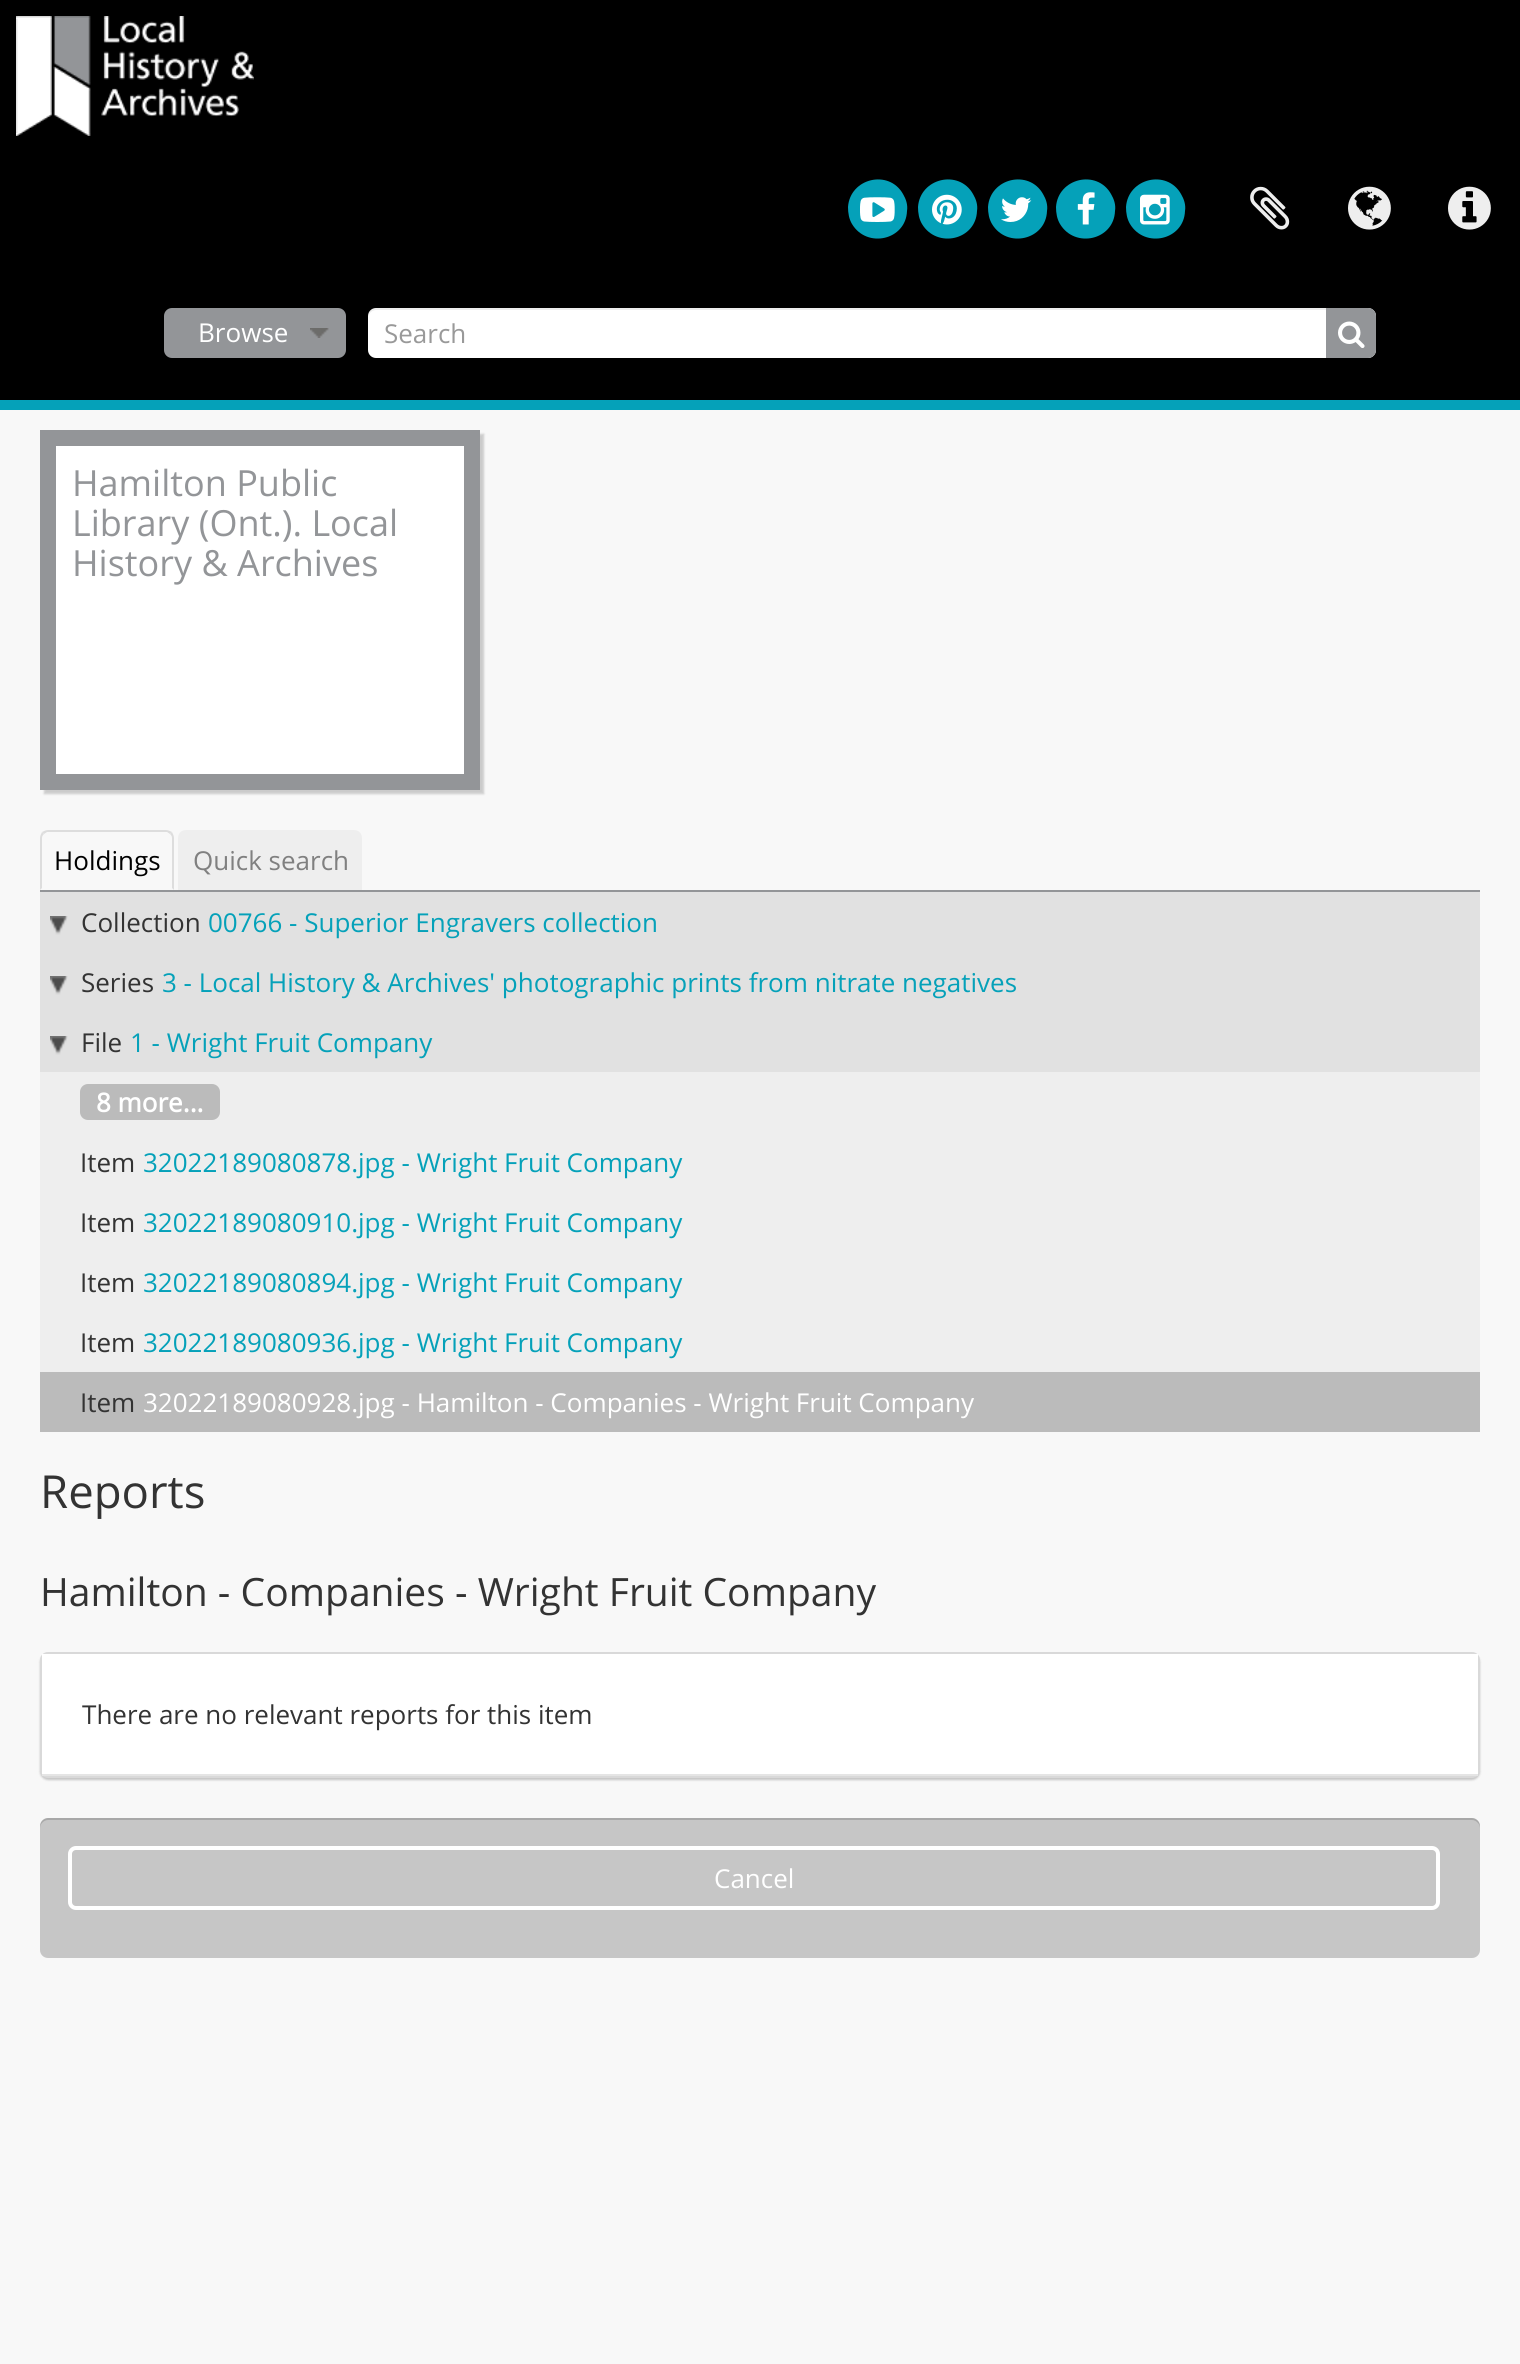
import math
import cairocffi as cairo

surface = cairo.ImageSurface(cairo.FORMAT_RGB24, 1520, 2364)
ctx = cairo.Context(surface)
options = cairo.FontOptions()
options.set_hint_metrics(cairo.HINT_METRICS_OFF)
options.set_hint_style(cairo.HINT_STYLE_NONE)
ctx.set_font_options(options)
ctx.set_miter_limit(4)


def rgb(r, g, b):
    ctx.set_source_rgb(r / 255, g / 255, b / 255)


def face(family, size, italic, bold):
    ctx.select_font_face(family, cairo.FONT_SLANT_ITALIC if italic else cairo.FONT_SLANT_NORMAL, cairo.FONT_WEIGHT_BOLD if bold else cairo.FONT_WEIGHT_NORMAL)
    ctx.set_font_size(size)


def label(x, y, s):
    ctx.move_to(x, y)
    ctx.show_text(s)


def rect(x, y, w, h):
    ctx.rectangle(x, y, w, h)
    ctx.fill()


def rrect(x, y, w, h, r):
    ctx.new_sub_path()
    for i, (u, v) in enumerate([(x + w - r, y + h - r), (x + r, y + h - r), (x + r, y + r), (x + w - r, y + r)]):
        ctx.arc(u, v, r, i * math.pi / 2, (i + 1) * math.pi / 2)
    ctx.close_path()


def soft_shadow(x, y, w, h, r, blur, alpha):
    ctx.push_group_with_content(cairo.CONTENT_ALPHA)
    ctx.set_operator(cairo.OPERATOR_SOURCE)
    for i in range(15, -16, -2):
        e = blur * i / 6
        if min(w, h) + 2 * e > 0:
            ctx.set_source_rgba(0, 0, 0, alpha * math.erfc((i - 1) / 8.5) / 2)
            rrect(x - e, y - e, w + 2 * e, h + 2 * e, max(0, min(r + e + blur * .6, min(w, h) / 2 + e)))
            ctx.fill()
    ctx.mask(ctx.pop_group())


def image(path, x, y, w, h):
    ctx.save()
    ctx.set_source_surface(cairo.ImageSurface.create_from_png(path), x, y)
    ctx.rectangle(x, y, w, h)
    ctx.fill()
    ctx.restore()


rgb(248, 248, 248)
ctx.paint()
rgb(0, 0, 0)
rect(0, 0, 1520, 400)
image('image0.png', 16, 16, 238, 120)
rgb(5, 161, 185)
ctx.new_path()
ctx.move_to(903, 194)
ctx.curve_to(906, 199, 908, 205, 907, 211)
ctx.curve_to(906, 240, 867, 249, 852, 224)
ctx.curve_to(849, 219, 848, 213, 848, 207)
ctx.curve_to(850, 178, 889, 169, 903, 194)
ctx.close_path()
ctx.fill()
image('image1.png', 860, 197, 35, 25)
ctx.new_path()
ctx.move_to(973, 194)
ctx.curve_to(976, 199, 978, 205, 977, 211)
ctx.curve_to(976, 240, 937, 249, 922, 224)
ctx.curve_to(919, 219, 918, 213, 918, 207)
ctx.curve_to(920, 178, 959, 169, 973, 194)
ctx.close_path()
ctx.fill()
image('image2.png', 932, 194, 30, 31)
ctx.new_path()
ctx.move_to(1043, 194)
ctx.curve_to(1046, 199, 1048, 205, 1047, 211)
ctx.curve_to(1046, 240, 1007, 249, 992, 224)
ctx.curve_to(989, 219, 988, 213, 988, 207)
ctx.curve_to(990, 178, 1029, 169, 1043, 194)
ctx.close_path()
ctx.fill()
image('image3.png', 1001, 197, 31, 25)
ctx.new_path()
ctx.move_to(1111, 194)
ctx.curve_to(1114, 199, 1116, 205, 1115, 211)
ctx.curve_to(1114, 240, 1075, 249, 1060, 224)
ctx.curve_to(1057, 219, 1056, 213, 1056, 207)
ctx.curve_to(1058, 178, 1097, 169, 1111, 194)
ctx.close_path()
ctx.fill()
image('image4.png', 1077, 192, 18, 33)
ctx.new_path()
ctx.move_to(1181, 194)
ctx.curve_to(1184, 199, 1186, 205, 1185, 211)
ctx.curve_to(1184, 240, 1145, 249, 1130, 224)
ctx.curve_to(1127, 219, 1126, 213, 1126, 207)
ctx.curve_to(1128, 178, 1167, 169, 1181, 194)
ctx.close_path()
ctx.fill()
image('image5.png', 1140, 194, 30, 31)
image('image6.png', 1250, 186, 40, 44)
image('image7.png', 1348, 186, 43, 44)
image('image8.png', 1448, 186, 43, 44)
rgb(147, 149, 152)
rrect(164, 308, 182, 50, 8)
ctx.fill()
image('image9.png', 310, 328, 19, 10)
face('Open Sans', 26, 0, 0)
rgb(255, 255, 255)
label(198, 342, 'Browse')
rrect(368, 308, 1008, 50, 8)
ctx.fill()
ctx.set_source_rgba(0, 0, 0, 0.07)
ctx.new_path()
ctx.move_to(376, 310)
ctx.line_to(1368, 310)
ctx.curve_to(1372, 310, 1376, 314, 1376, 318)
ctx.curve_to(1376, 313, 1374, 308, 1368, 308)
ctx.line_to(376, 308)
ctx.curve_to(370, 308, 368, 313, 368, 318)
ctx.curve_to(368, 314, 372, 310, 376, 310)
ctx.close_path()
ctx.fill()
rgb(153, 153, 153)
label(384, 343, 'Search')
rgb(147, 149, 152)
ctx.new_path()
ctx.move_to(1326, 308)
ctx.line_to(1368, 308)
ctx.curve_to(1372.5, 308, 1376, 311.5, 1376, 316)
ctx.line_to(1376, 350)
ctx.curve_to(1376, 354.5, 1372.5, 358, 1368, 358)
ctx.line_to(1326, 358)
ctx.close_path()
ctx.fill()
image('image10.png', 1338, 321, 27, 27)
rgb(5, 161, 185)
rect(0, 400, 1520, 10)
rgb(25, 25, 25)
soft_shadow(44, 434, 440, 360, 0, 1, 0.2)
rgb(255, 255, 255)
ctx.rectangle(48, 438, 424, 344)
ctx.fill_preserve()
rgb(147, 149, 152)
ctx.set_line_width(16)
ctx.stroke()
face('Open Sans', 36, 0, 0)
label(72, 496, 'Hamilton Public')
label(72, 536, 'Library (Ont.). Local')
label(72, 576, 'History & Archives')
rect(40, 890, 1440, 2)
rgb(221, 221, 221)
ctx.new_path()
ctx.move_to(48, 830)
ctx.curve_to(46, 830, 44, 831, 42, 832)
ctx.line_to(44, 834)
ctx.line_to(47, 832)
ctx.line_to(167, 832)
ctx.line_to(170, 834)
ctx.line_to(172, 832)
ctx.curve_to(170, 831, 168, 830, 166, 830)
ctx.close_path()
ctx.fill()
ctx.new_path()
ctx.move_to(174, 890)
ctx.line_to(174, 838)
ctx.curve_to(174, 836, 173, 834, 172, 832)
ctx.line_to(170, 834)
ctx.curve_to(171, 835, 172, 836, 172, 838)
ctx.line_to(172, 888)
ctx.close_path()
ctx.fill()
ctx.new_path()
ctx.move_to(40, 890)
ctx.line_to(42, 888)
ctx.line_to(42, 838)
ctx.curve_to(42, 836, 43, 835, 44, 834)
ctx.line_to(42, 832)
ctx.curve_to(41, 834, 40, 836, 40, 838)
ctx.close_path()
ctx.fill()
face('Open Sans', 26, 0, 0)
rgb(0, 0, 0)
label(54, 870, 'Holdings')
rgb(238, 238, 238)
ctx.new_path()
ctx.move_to(186, 830)
ctx.line_to(354, 830)
ctx.curve_to(358.5, 830, 362, 833.5, 362, 838)
ctx.line_to(362, 890)
ctx.line_to(178, 890)
ctx.line_to(178, 838)
ctx.curve_to(178, 833.5, 181.5, 830, 186, 830)
ctx.close_path()
ctx.fill()
rgb(128, 128, 128)
label(193, 870, 'Quick search')
rgb(238, 238, 238)
rect(40, 1072, 1440, 300)
rgb(225, 225, 225)
rect(40, 892, 1440, 180)
image('image11.png', 50, 916, 18, 19)
rgb(51, 51, 51)
label(81, 932, 'Collection')
rgb(5, 161, 185)
label(208, 932, '00766 - Superior Engravers collection')
image('image11.png', 50, 976, 18, 19)
rgb(51, 51, 51)
label(81, 992, 'Series')
rgb(5, 161, 185)
label(162, 992, '3 - Local History & Archives\' photographic prints from nitrate negatives')
image('image11.png', 50, 1036, 18, 19)
rgb(51, 51, 51)
label(81, 1052, 'File')
rgb(5, 161, 185)
label(130, 1052, '1 - Wright Fruit Company')
rgb(187, 187, 187)
rrect(80, 1084, 140, 36, 8)
ctx.fill()
face('Open Sans', 26, 0, 1)
rgb(255, 255, 255)
label(96, 1112, '8 more...')
face('Open Sans', 26, 0, 0)
rgb(51, 51, 51)
label(80, 1172, 'Item')
rgb(5, 161, 185)
label(143, 1172, '32022189080878.jpg - Wright Fruit Company')
rgb(51, 51, 51)
label(80, 1232, 'Item')
rgb(5, 161, 185)
label(143, 1232, '32022189080910.jpg - Wright Fruit Company')
rgb(51, 51, 51)
label(80, 1292, 'Item')
rgb(5, 161, 185)
label(143, 1292, '32022189080894.jpg - Wright Fruit Company')
rgb(51, 51, 51)
label(80, 1352, 'Item')
rgb(5, 161, 185)
label(143, 1352, '32022189080936.jpg - Wright Fruit Company')
rgb(187, 187, 187)
rect(40, 1372, 1440, 60)
rgb(51, 51, 51)
label(80, 1412, 'Item')
rgb(255, 255, 255)
label(143, 1412, '32022189080928.jpg - Hamilton - Companies - Wright Fruit Company')
face('Open Sans', 45.5, 0, 0)
rgb(51, 51, 51)
label(40, 1508, 'Reports')
face('Open Sans', 39, 0, 0)
label(40, 1606, 'Hamilton - Companies - Wright Fruit Company')
rgb(0, 0, 0)
soft_shadow(40, 1654, 1440, 126, 8, 1, 0.2)
rrect(41, 1653, 1438, 124, 7)
rgb(217, 217, 217)
ctx.set_line_width(2)
ctx.stroke()
rgb(255, 255, 255)
rect(42, 1654, 1436, 120)
rgb(229, 229, 229)
rect(42, 1774, 1436, 2)
face('Open Sans', 26, 0, 0)
rgb(51, 51, 51)
label(82, 1724, 'There are no relevant reports for this item')
rgb(198, 198, 198)
rrect(40, 1818, 1440, 140, 8)
ctx.fill()
ctx.set_source_rgba(0, 0, 0, 0.15)
ctx.new_path()
ctx.move_to(48, 1820)
ctx.line_to(1472, 1820)
ctx.curve_to(1476, 1820, 1480, 1824, 1480, 1828)
ctx.line_to(1480, 1826)
ctx.curve_to(1480, 1822, 1476, 1818, 1472, 1818)
ctx.line_to(48, 1818)
ctx.curve_to(44, 1818, 40, 1822, 40, 1826)
ctx.line_to(40, 1828)
ctx.curve_to(40, 1824, 44, 1820, 48, 1820)
ctx.close_path()
ctx.fill()
rrect(70, 1848, 1368, 60, 6)
rgb(255, 255, 255)
ctx.set_line_width(4)
ctx.stroke()
label(714, 1888, 'Cancel')
surface.write_to_png('render.png')
